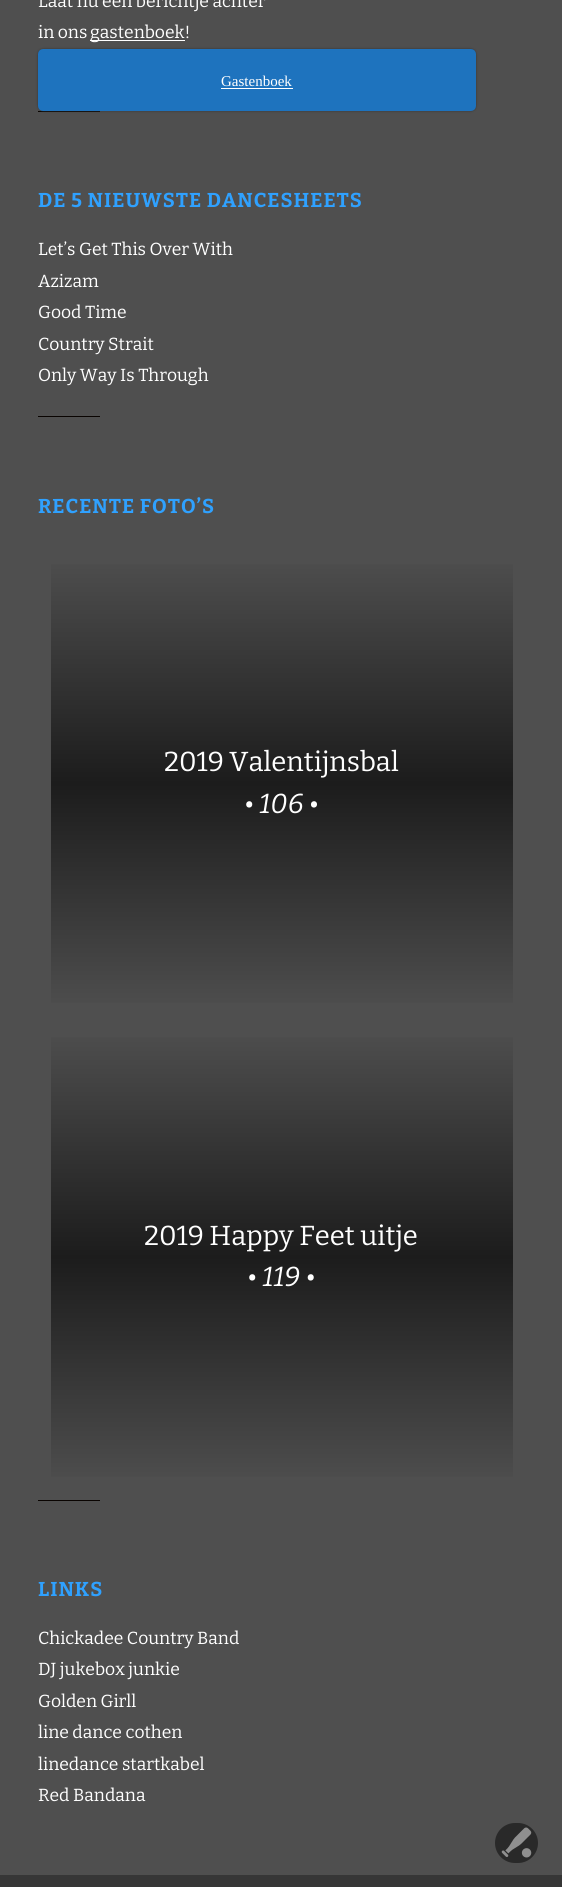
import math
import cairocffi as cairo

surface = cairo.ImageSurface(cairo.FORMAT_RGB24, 562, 1887)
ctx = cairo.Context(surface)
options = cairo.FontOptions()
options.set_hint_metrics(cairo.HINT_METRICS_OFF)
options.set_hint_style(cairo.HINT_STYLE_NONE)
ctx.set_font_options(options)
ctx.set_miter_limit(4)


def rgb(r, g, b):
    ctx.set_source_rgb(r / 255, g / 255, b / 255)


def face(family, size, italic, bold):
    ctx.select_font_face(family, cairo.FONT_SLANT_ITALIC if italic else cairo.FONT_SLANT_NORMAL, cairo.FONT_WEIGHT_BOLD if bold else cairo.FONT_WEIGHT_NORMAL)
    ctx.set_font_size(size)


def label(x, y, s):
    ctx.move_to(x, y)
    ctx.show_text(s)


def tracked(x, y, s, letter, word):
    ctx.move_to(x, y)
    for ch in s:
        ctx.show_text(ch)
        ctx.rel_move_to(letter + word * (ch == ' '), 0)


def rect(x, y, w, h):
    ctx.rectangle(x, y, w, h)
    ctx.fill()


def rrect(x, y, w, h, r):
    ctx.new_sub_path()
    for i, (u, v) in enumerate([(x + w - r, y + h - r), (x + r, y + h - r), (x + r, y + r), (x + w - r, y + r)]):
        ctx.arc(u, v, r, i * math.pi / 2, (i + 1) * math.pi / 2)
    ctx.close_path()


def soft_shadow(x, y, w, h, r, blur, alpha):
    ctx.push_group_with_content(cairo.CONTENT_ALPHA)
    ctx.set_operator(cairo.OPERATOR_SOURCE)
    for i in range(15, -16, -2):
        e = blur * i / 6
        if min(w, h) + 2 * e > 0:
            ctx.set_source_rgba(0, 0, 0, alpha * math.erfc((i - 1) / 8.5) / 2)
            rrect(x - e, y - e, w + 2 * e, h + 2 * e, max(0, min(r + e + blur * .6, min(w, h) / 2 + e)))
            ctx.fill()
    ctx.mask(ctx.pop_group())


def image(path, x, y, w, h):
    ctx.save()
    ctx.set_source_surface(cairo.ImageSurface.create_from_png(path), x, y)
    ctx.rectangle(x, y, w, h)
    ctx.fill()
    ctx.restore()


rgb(54, 54, 54)
ctx.paint()
rgb(79, 79, 79)
rect(0, 0, 562, 1875)
face('Bitter', 17.5, 0, 0)
rgb(255, 255, 255)
label(38, 7, 'Laat nu een berichtje achter')
label(38, 38, 'in ons')
rect(90, 40, 95, 1)
label(90, 38, 'gastenboek!')
rgb(9, 4, 1)
rect(38, 111, 62, 1)
rgb(51, 51, 51)
soft_shadow(38, 49, 438, 62, 5, 1, 1)
rgb(30, 115, 190)
rrect(39.5, 50.5, 435, 59, 3.5)
ctx.fill_preserve()
ctx.set_line_width(3)
ctx.stroke()
face('Liberation Serif', 15, 0, 0)
rgb(255, 255, 255)
label(221, 86, 'Gastenboek')
rect(221, 88, 72, 1)
face('Bitter', 20, 0, 1)
rgb(47, 161, 255)
tracked(38, 207, 'DE 5 NIEUWSTE DANCESHEETS', 1, 0)
face('Bitter', 17.5, 0, 0)
rgb(255, 255, 255)
label(38, 255, 'Let’s Get This Over With')
label(38, 287, 'Azizam')
label(38, 318, 'Good Time')
label(38, 350, 'Country Strait')
label(38, 381, 'Only Way Is Through')
rgb(9, 4, 1)
rect(38, 416, 62, 1)
face('Bitter', 20, 0, 1)
rgb(47, 161, 255)
tracked(38, 513, 'RECENTE FOTO’S', 1, 0)
gradient = cairo.LinearGradient(282, 1014, 282, 553)
gradient.add_color_stop_rgba(0, 0.31, 0.31, 0.31, 1)
gradient.add_color_stop_rgba(0.5, 0.11, 0.11, 0.11, 1)
gradient.add_color_stop_rgba(1, 0.31, 0.31, 0.31, 1)
ctx.set_source(gradient)
rect(51, 564, 462, 439)
face('Bitter', 27.5, 0, 0)
rgb(255, 255, 255)
label(164, 771, '2019 Valentijnsbal')
face('Bitter Thin', 27.5, 1, 0)
label(244, 813, '• 106 •')
gradient = cairo.LinearGradient(282, 1488, 282, 1026)
gradient.add_color_stop_rgba(0, 0.31, 0.31, 0.31, 1)
gradient.add_color_stop_rgba(0.5, 0.11, 0.11, 0.11, 1)
gradient.add_color_stop_rgba(1, 0.31, 0.31, 0.31, 1)
ctx.set_source(gradient)
rect(51, 1037, 462, 440)
face('Bitter', 27.5, 0, 0)
rgb(255, 255, 255)
label(144, 1245, '2019 Happy Feet uitje')
face('Bitter Thin', 27.5, 1, 0)
label(247, 1286, '• 119 •')
rgb(9, 4, 1)
rect(38, 1500, 62, 1)
face('Bitter', 20, 0, 1)
rgb(47, 161, 255)
tracked(38, 1596, 'LINKS', 1, 0)
face('Bitter', 17.5, 0, 0)
rgb(255, 255, 255)
label(38, 1644, 'Chickadee Country Band')
label(38, 1675, 'DJ jukebox junkie')
label(38, 1707, 'Golden Girll')
label(38, 1738, 'line dance cothen')
label(38, 1770, 'linedance startkabel')
label(38, 1801, 'Red Bandana')
rgb(41, 41, 41)
rrect(495, 1823, 43, 40, 20)
ctx.fill()
image('image0.png', 501, 1827, 31, 31)
surface.write_to_png('render.png')
